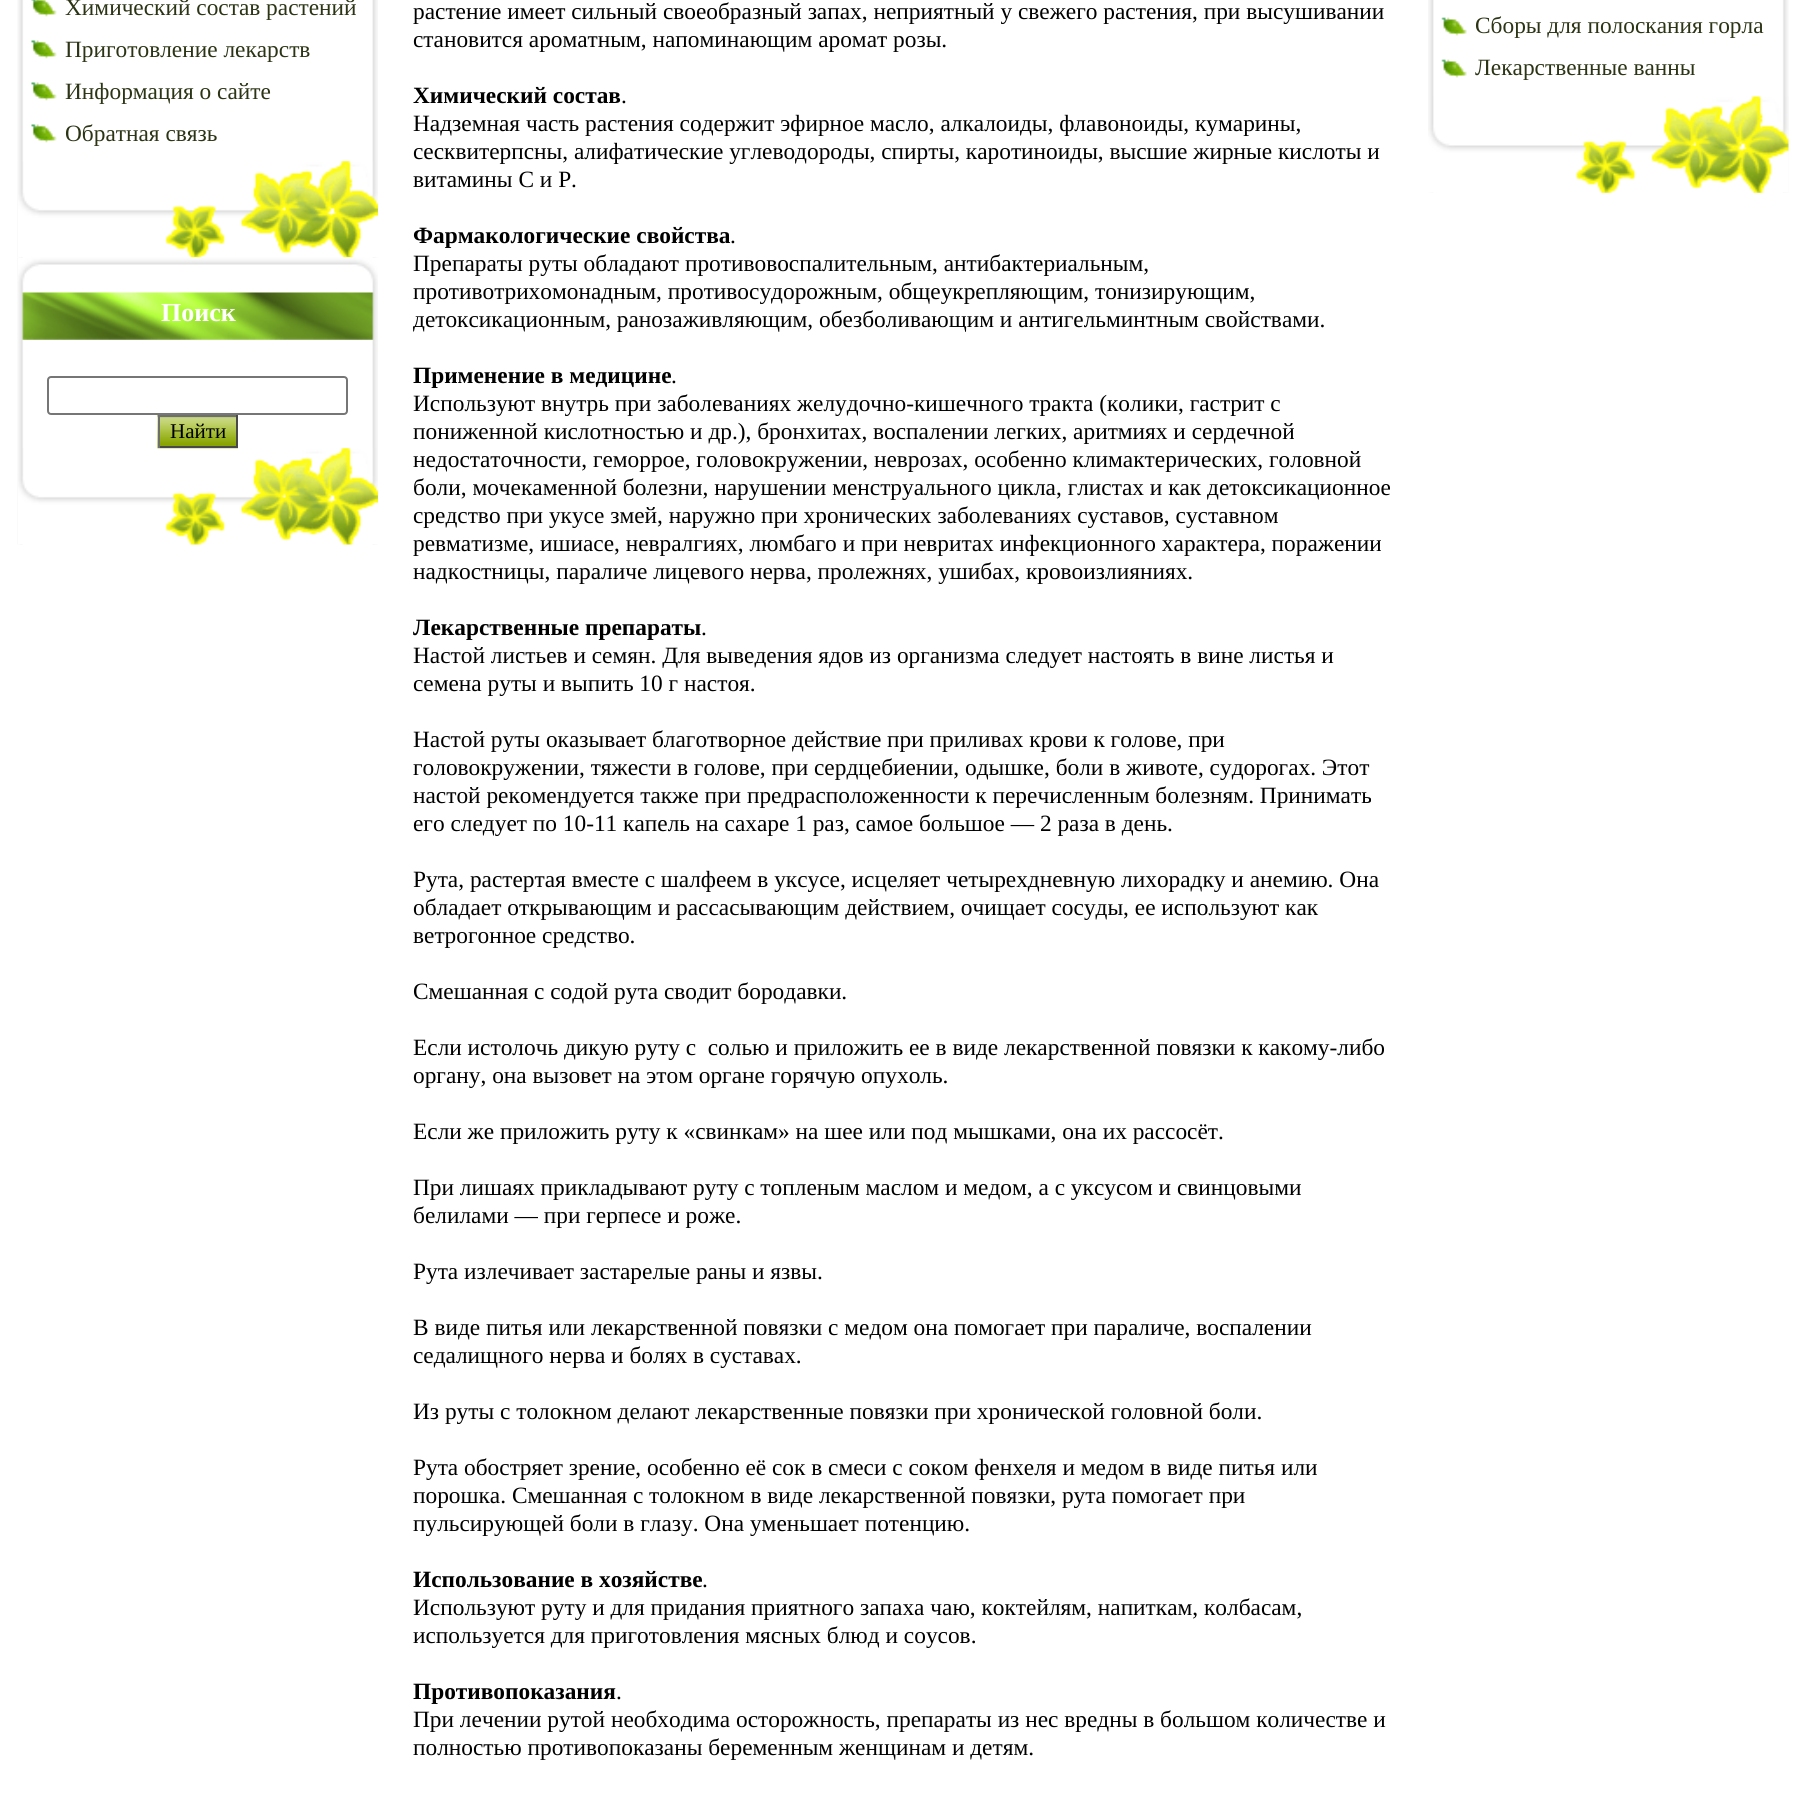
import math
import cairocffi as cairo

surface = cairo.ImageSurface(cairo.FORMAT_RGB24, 1806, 1800)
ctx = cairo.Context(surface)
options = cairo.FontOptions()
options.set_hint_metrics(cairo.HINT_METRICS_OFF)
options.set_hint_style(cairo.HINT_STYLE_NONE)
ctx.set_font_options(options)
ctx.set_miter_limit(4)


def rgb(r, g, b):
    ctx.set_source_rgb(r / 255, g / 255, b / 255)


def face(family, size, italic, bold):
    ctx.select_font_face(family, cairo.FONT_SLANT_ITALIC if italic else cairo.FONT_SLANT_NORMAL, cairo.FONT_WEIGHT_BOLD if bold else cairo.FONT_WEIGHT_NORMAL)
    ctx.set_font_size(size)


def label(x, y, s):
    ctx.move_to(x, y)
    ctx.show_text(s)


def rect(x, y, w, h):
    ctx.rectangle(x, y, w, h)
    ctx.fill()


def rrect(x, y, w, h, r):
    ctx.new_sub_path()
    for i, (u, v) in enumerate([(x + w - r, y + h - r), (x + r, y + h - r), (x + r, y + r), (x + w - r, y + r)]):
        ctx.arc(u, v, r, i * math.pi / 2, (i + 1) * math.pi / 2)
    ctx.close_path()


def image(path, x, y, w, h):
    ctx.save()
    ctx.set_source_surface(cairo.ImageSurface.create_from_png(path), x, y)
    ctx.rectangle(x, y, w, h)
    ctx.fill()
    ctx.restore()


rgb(255, 255, 255)
ctx.paint()
image('image0.png', 17, 0, 361, 258)
image('image1.png', 18, 161, 360, 97)
image('image2.png', 31, 0, 26, 17)
face('Liberation Serif', 23.35, 0, 0)
rgb(43, 52, 20)
label(65, 15, 'Химический состав растений')
image('image3.png', 31, 40, 26, 19)
label(65, 57, 'Приготовление лекарств')
image('image3.png', 31, 82, 26, 19)
label(65, 99, 'Информация о сайте')
image('image3.png', 31, 124, 26, 19)
label(65, 141, 'Обратная связь')
image('image4.png', 17, 257, 361, 288)
image('image5.png', 18, 257, 360, 83)
face('Liberation Serif', 26, 0, 1)
rgb(255, 255, 255)
label(161, 321, 'Поиск')
image('image1.png', 18, 448, 360, 97)
rrect(48, 377, 299, 37, 3)
rgb(118, 118, 118)
ctx.stroke()
image('image6.png', 157, 415, 81, 34)
rgb(110, 110, 110)
rect(158, 415, 80, 2)
rgb(73, 73, 73)
rect(236, 415, 2, 33)
rect(158, 446, 80, 2)
rgb(110, 110, 110)
rect(158, 415, 2, 33)
face('Liberation Serif', 21, 0, 0)
rgb(0, 0, 0)
label(170, 438, 'Найти')
face('Liberation Serif', 23.35, 0, 0)
label(413, 19, 'растение имеет сильный своеобразный запах, неприятный у свежего растения, при высушивании')
label(413, 47, 'становится ароматным, напоминающим аромат розы.')
face('Liberation Serif', 23.35, 0, 1)
label(413, 103, 'Химический состав')
face('Liberation Serif', 23.35, 0, 0)
label(621, 103, '.')
label(413, 131, 'Надземная часть растения содержит эфирное масло, алкалоиды, флавоноиды, кумарины,')
label(413, 159, 'сесквитерпсны, алифатические углеводороды, спирты, каротиноиды, высшие жирные кислоты и')
label(413, 187, 'витамины С и Р.')
face('Liberation Serif', 23.35, 0, 1)
label(413, 243, 'Фармакологические свойства')
face('Liberation Serif', 23.35, 0, 0)
label(730, 243, '.')
label(413, 271, 'Препараты руты обладают противовоспалительным, антибактериальным,')
label(413, 299, 'противотрихомонадным, противосудорожным, общеукрепляющим, тонизирующим,')
label(413, 327, 'детоксикационным, ранозаживляющим, обезболивающим и антигельминтным свойствами.')
face('Liberation Serif', 23.35, 0, 1)
label(413, 383, 'Применение в медицине')
face('Liberation Serif', 23.35, 0, 0)
label(671, 383, '.')
label(413, 411, 'Используют внутрь при заболеваниях желудочно-кишечного тракта (колики, гастрит с')
label(413, 439, 'пониженной кислотностью и др.), бронхитах, воспалении легких, аритмиях и сердечной')
label(413, 467, 'недостаточности, геморрое, головокружении, неврозах, особенно климактерических, головной')
label(413, 495, 'боли, мочекаменной болезни, нарушении менструального цикла, глистах и как детоксикационное')
label(413, 523, 'средство при укусе змей, наружно при хронических заболеваниях суставов, суставном')
label(413, 551, 'ревматизме, ишиасе, невралгиях, люмбаго и при невритах инфекционного характера, поражении')
label(413, 579, 'надкостницы, параличе лицевого нерва, пролежнях, ушибах, кровоизлияниях.')
face('Liberation Serif', 23.35, 0, 1)
label(413, 635, 'Лекарственные препараты')
face('Liberation Serif', 23.35, 0, 0)
label(701, 635, '.')
label(413, 663, 'Настой листьев и семян. Для выведения ядов из организма следует настоять в вине листья и')
label(413, 691, 'семена руты и выпить 10 г настоя.')
label(413, 747, 'Настой руты оказывает благотворное действие при приливах крови к голове, при')
label(413, 775, 'головокружении, тяжести в голове, при сердцебиении, одышке, боли в животе, судорогах. Этот')
label(413, 803, 'настой рекомендуется также при предрасположенности к перечисленным болезням. Принимать')
label(413, 831, 'его следует по 10-11 капель на сахаре 1 раз, самое большое — 2 раза в день.')
label(413, 887, 'Рута, растертая вместе с шалфеем в уксусе, исцеляет четырехдневную лихорадку и анемию. Она')
label(413, 915, 'обладает открывающим и рассасывающим действием, очищает сосуды, ее используют как')
label(413, 943, 'ветрогонное средство.')
label(413, 999, 'Смешанная с содой рута сводит бородавки.')
label(413, 1055, 'Если истолочь дикую руту с  солью и приложить ее в виде лекарственной повязки к какому-либо')
label(413, 1083, 'органу, она вызовет на этом органе горячую опухоль.')
label(413, 1139, 'Если же приложить руту к «свинкам» на шее или под мышками, она их рассосёт.')
label(413, 1195, 'При лишаях прикладывают руту с топленым маслом и медом, а с уксусом и свинцовыми')
label(413, 1223, 'белилами — при герпесе и роже.')
label(413, 1279, 'Рута излечивает застарелые раны и язвы.')
label(413, 1335, 'В виде питья или лекарственной повязки с медом она помогает при параличе, воспалении')
label(413, 1363, 'седалищного нерва и болях в суставах.')
label(413, 1419, 'Из руты с толокном делают лекарственные повязки при хронической головной боли.')
label(413, 1475, 'Рута обостряет зрение, особенно её сок в смеси с соком фенхеля и медом в виде питья или')
label(413, 1503, 'порошка. Смешанная с толокном в виде лекарственной повязки, рута помогает при')
label(413, 1531, 'пульсирующей боли в глазу. Она уменьшает потенцию.')
face('Liberation Serif', 23.35, 0, 1)
label(413, 1587, 'Использование в хозяйстве')
face('Liberation Serif', 23.35, 0, 0)
label(702, 1587, '.')
label(413, 1615, 'Используют руту и для придания приятного запаха чаю, коктейлям, напиткам, колбасам,')
label(413, 1643, 'используется для приготовления мясных блюд и соусов.')
face('Liberation Serif', 23.35, 0, 1)
label(413, 1699, 'Противопоказания')
face('Liberation Serif', 23.35, 0, 0)
label(616, 1699, '.')
label(413, 1727, 'При лечении рутой необходима осторожность, препараты из нес вредны в большом количестве и')
label(413, 1755, 'полностью противопоказаны беременным женщинам и детям.')
image('image7.png', 1428, 0, 361, 193)
image('image8.png', 1428, 96, 361, 97)
image('image9.png', 1441, 17, 26, 19)
rgb(43, 52, 20)
label(1475, 33, 'Сборы для полоскания горла')
image('image9.png', 1441, 59, 26, 19)
label(1475, 75, 'Лекарственные ванны')
surface.write_to_png('render.png')
